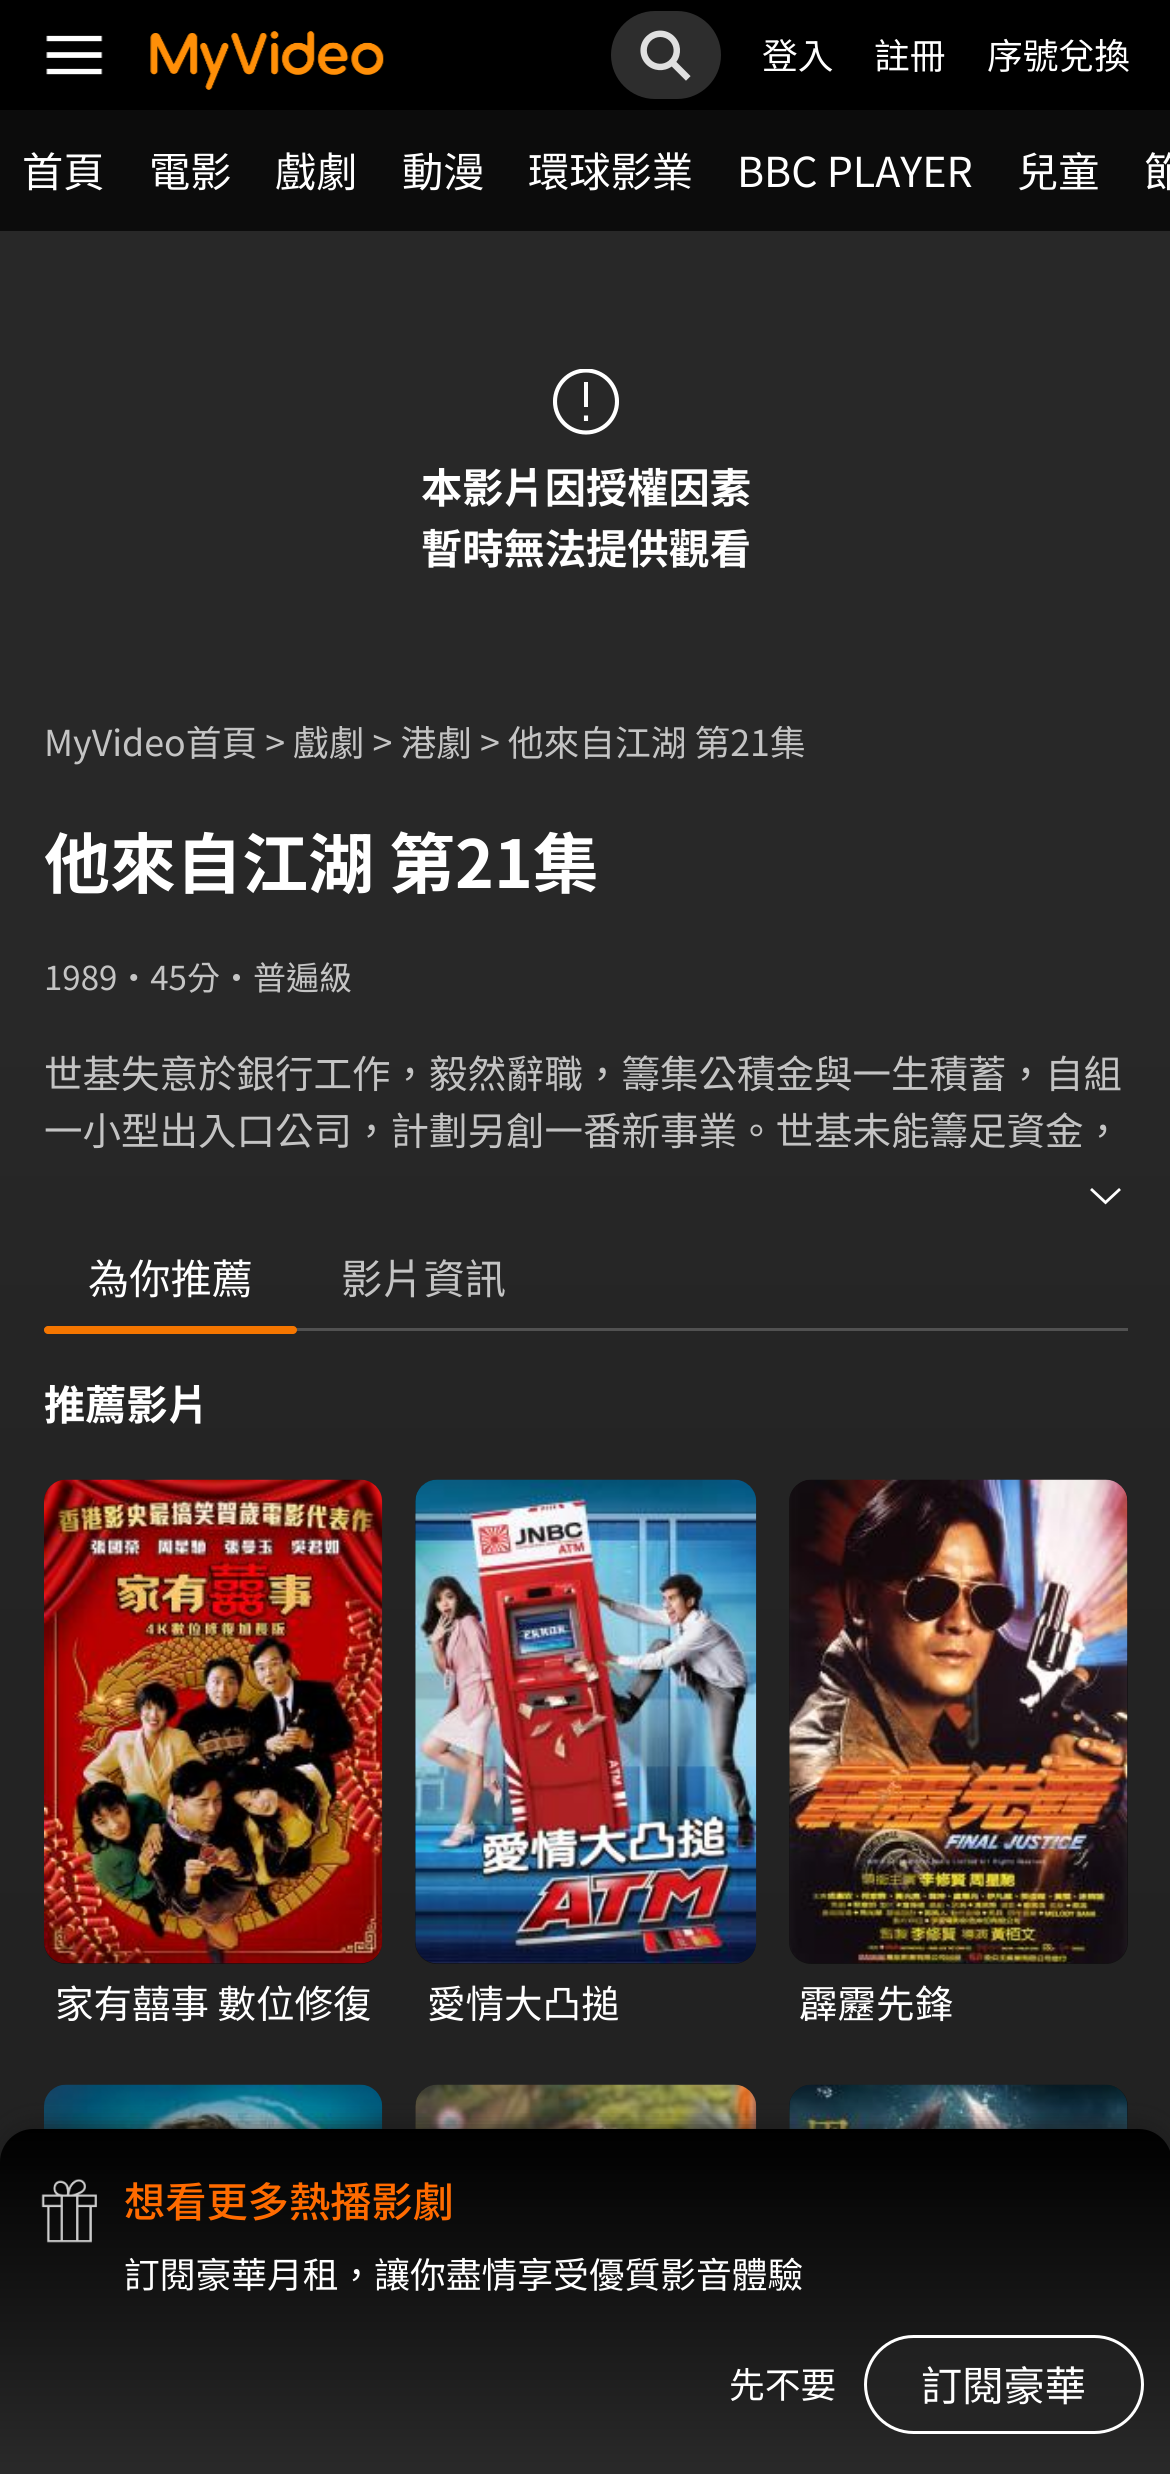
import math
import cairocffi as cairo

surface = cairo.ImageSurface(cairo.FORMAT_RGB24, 1170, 2474)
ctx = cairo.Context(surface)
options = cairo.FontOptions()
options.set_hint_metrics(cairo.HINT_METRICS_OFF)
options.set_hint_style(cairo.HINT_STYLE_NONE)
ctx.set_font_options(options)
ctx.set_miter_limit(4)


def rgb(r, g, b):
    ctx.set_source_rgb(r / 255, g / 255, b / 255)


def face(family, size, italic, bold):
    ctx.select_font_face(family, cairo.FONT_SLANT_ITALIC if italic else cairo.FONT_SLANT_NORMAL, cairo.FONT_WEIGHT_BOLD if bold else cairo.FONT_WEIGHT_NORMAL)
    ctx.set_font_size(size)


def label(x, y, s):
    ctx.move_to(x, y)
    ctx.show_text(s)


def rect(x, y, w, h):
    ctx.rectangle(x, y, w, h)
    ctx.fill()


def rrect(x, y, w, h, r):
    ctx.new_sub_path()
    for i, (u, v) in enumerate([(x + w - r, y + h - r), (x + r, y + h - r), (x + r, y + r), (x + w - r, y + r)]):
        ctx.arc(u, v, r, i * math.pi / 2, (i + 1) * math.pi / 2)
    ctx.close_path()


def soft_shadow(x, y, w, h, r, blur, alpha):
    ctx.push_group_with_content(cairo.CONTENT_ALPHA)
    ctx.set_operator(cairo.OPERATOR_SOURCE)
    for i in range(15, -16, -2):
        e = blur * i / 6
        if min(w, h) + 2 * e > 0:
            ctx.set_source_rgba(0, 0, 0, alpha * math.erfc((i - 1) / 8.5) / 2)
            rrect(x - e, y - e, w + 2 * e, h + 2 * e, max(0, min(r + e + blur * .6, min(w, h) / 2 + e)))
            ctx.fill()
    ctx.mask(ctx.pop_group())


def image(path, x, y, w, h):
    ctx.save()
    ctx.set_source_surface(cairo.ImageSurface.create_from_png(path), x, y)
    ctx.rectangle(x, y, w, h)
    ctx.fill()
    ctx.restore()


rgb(255, 255, 255)
ctx.paint()
rgb(0, 0, 0)
rect(0, 0, 1170, 110)
image('image0.png', 46, 35, 57, 40)
image('image1.png', 150, 31, 234, 59)
rgb(45, 45, 45)
rrect(611, 11, 110, 88, 44)
ctx.fill()
image('image2.png', 640, 30, 51, 51)
face('Noto Sans TC', 35.75, 0, 0)
rgb(255, 255, 255)
label(762, 69, '登入')
label(874, 69, '註冊')
label(987, 69, '序號兌換')
rgb(12, 12, 12)
rect(0, 110, 1170, 121)
face('Noto Sans TC', 41.25, 0, 0)
rgb(255, 255, 255)
label(22, 187, '首頁')
label(149, 187, '電影')
label(275, 187, '戲劇')
label(402, 187, '動漫')
label(528, 187, '環球影業')
label(737, 187, 'BBC PLAYER')
label(1017, 187, '兒童')
label(1144, 187, '節')
gradient = cairo.LinearGradient(586, 231, 586, 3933)
gradient.add_color_stop_rgba(0.21, 0.157, 0.157, 0.157, 1)
gradient.add_color_stop_rgba(0.3, 0.145, 0.145, 0.145, 1)
gradient.add_color_stop_rgba(0.4, 0.137, 0.137, 0.137, 1)
gradient.add_color_stop_rgba(0.63, 0.129, 0.129, 0.129, 1)
ctx.set_source(gradient)
rect(0, 231, 1170, 1931)
ctx.save()
ctx.rectangle(553, 369, 66, 66)
ctx.clip()
ctx.arc(586, 401.5, 31, 0, 2 * math.pi)
rgb(255, 255, 255)
ctx.set_line_width(4.1)
ctx.stroke()
ctx.restore()
rgb(255, 255, 255)
rect(584, 382, 4, 25)
ctx.new_path()
ctx.move_to(586, 421)
ctx.line_to(586, 415.5)
ctx.set_line_width(4.1)
ctx.stroke()
face('Noto Sans TC', 41.25, 0, 1)
label(421, 503, '本影片因授權因素')
label(421, 564, '暫時無法提供觀看')
face('Noto Sans TC', 35.75, 0, 0)
rgb(196, 196, 196)
label(44, 756, 'MyVideo首頁 > 戲劇 > 港劇 > 他來自江湖 第21集')
face('Noto Sans TC', 66, 0, 1)
rgb(255, 255, 255)
label(44, 888, '他來自江湖 第21集')
face('Noto Sans TC', 33, 0, 0)
rgb(196, 196, 196)
label(44, 990, '1989・45分・普遍級')
face('Noto Sans TC', 38.5, 0, 0)
label(44, 1088, '世基失意於銀行工作，毅然辭職，籌集公積金與一生積蓄，自組')
label(44, 1145, '一小型出入口公司，計劃另創一番新事業。世基未能籌足資金，')
ctx.new_path()
ctx.move_to(1120, 1189)
ctx.line_to(1105.5, 1202.5)
ctx.line_to(1091, 1189)
rgb(255, 255, 255)
ctx.set_line_width(2.8)
ctx.stroke()
rgb(81, 81, 81)
rect(44, 1328, 1084, 3)
face('Noto Sans TC', 41.25, 0, 0)
rgb(255, 255, 255)
label(88, 1294, '為你推薦')
rgb(196, 196, 196)
label(341, 1294, '影片資訊')
rgb(245, 118, 0)
rrect(44, 1326, 253, 8, 4)
ctx.fill()
face('Noto Sans TC', 41.25, 0, 1)
rgb(255, 255, 255)
label(44, 1420, '推薦影片')
rgb(18, 18, 18)
rrect(44, 1480, 338, 484, 22)
ctx.fill()
image('image3.png', 44, 1479, 339, 485)
face('Noto Sans TC', 38.5, 0, 0)
rgb(255, 255, 255)
label(55, 2018, '家有囍事 數位修復')
rgb(18, 18, 18)
rrect(415, 1480, 341, 484, 22)
ctx.fill()
image('image4.png', 415, 1479, 342, 485)
rgb(255, 255, 255)
label(427, 2018, '愛情大凸搥')
rgb(18, 18, 18)
rrect(789, 1480, 339, 484, 22)
ctx.fill()
image('image5.png', 789, 1479, 339, 485)
rgb(255, 255, 255)
label(799, 2018, '霹靂先鋒')
image('image6.png', 44, 2084, 339, 45)
rgb(18, 18, 18)
rrect(415, 2085, 341, 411, 22)
ctx.fill()
image('image7.png', 415, 2084, 342, 45)
rrect(789, 2085, 339, 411, 22)
ctx.fill()
image('image8.png', 789, 2084, 339, 45)
rgb(27, 27, 27)
soft_shadow(0, 2126, 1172, 346, 33, 11, 0.8)
gradient = cairo.LinearGradient(586, 2129, 586, 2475)
gradient.add_color_stop_rgba(0, 0, 0, 0, 1)
gradient.add_color_stop_rgba(1, 0.165, 0.165, 0.165, 1)
ctx.set_source(gradient)
ctx.new_path()
ctx.move_to(33, 2129)
ctx.line_to(1139, 2129)
ctx.curve_to(1157, 2129, 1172, 2144, 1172, 2162)
ctx.line_to(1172, 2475)
ctx.line_to(0, 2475)
ctx.line_to(0, 2162)
ctx.curve_to(0, 2144, 15, 2129, 33, 2129)
ctx.close_path()
ctx.fill()
image('image9.png', 41, 2179, 56, 64)
face('Noto Sans TC Medium', 41.25, 0, 0)
rgb(255, 107, 0)
label(124, 2217, '想看更多熱播影劇')
face('Noto Sans TC', 35.75, 0, 0)
rgb(255, 255, 255)
label(124, 2288, '訂閱豪華月租，讓你盡情享受優質影音體驗')
label(729, 2398, '先不要')
ctx.set_source_rgba(0.149, 0.149, 0.149, 0.6)
rrect(865.5, 2336.5, 277, 96, 48)
ctx.fill_preserve()
rgb(255, 255, 255)
ctx.set_line_width(3)
ctx.stroke()
face('Noto Sans TC', 41.25, 0, 0)
label(921, 2401, '訂閱豪華')
surface.write_to_png('render.png')
